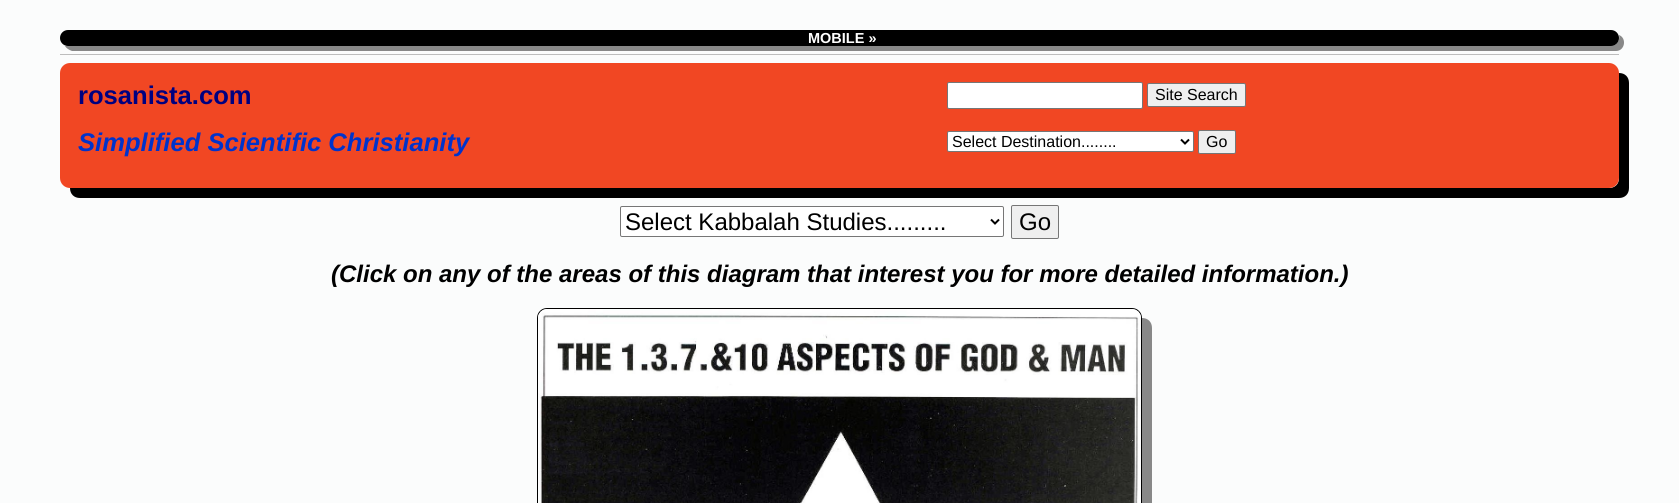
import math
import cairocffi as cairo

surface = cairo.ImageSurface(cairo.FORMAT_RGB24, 1679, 503)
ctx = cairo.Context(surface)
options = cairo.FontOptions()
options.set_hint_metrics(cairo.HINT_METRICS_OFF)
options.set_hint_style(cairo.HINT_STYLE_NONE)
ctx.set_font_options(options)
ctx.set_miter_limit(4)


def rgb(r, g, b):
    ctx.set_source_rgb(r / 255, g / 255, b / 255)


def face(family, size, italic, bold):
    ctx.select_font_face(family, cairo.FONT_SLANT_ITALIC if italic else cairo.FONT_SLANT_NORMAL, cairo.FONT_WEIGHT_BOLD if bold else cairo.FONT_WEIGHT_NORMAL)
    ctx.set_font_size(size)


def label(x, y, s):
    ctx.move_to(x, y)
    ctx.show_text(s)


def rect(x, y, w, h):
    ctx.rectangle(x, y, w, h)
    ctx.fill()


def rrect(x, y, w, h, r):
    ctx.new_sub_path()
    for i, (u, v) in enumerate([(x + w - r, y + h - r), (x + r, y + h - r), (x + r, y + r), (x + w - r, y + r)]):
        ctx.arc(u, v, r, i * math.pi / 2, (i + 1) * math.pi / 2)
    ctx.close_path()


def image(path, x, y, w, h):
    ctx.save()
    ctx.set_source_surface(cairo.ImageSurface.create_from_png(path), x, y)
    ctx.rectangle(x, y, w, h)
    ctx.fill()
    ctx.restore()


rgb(251, 252, 252)
ctx.paint()
rgb(136, 136, 136)
ctx.new_path()
ctx.move_to(65, 46)
ctx.curve_to(66, 48, 69, 50, 72, 51)
ctx.line_to(1616, 51)
ctx.curve_to(1625, 51, 1627, 38, 1619, 35)
ctx.curve_to(1620, 39, 1618, 43, 1615, 45)
ctx.line_to(1611, 46)
ctx.line_to(68, 46)
ctx.close_path()
ctx.fill()
rgb(0, 0, 0)
rrect(60, 30, 1559, 16, 8)
ctx.fill()
face('Liberation Sans', 14.5, 0, 1)
rgb(255, 255, 255)
label(808, 43, 'MOBILE »')
rgb(189, 189, 189)
rect(60, 54, 1559, 1)
rgb(0, 0, 0)
ctx.new_path()
ctx.move_to(70, 188)
ctx.curve_to(70, 194, 74, 198, 80, 198)
ctx.line_to(1619, 198)
ctx.curve_to(1625, 198, 1629, 194, 1629, 188)
ctx.line_to(1629, 83)
ctx.curve_to(1629, 77, 1625, 73, 1619, 73)
ctx.line_to(1619, 178)
ctx.curve_to(1619, 184, 1615, 188, 1609, 188)
ctx.close_path()
ctx.fill()
rgb(241, 71, 35)
rrect(60, 63, 1559, 125, 10)
ctx.fill()
face('Liberation Sans', 25.6, 0, 1)
rgb(0, 0, 128)
label(78, 104, 'rosanista.com')
rgb(255, 255, 255)
rrect(947.5, 82.5, 195, 26, 1.5)
ctx.fill_preserve()
rgb(118, 118, 118)
ctx.set_line_width(1)
ctx.stroke()
rgb(239, 239, 239)
rrect(1147.5, 83.5, 98, 23, 1.5)
ctx.fill_preserve()
rgb(118, 118, 118)
ctx.stroke()
face('Liberation Sans', 16, 0, 0)
rgb(0, 0, 0)
label(1155, 100, 'Site Search')
face('Liberation Sans', 25.6, 1, 1)
rgb(0, 51, 204)
label(78, 151, 'Simplified Scientific Christianity')
rgb(255, 255, 255)
rrect(947.5, 131.5, 246, 20, 1.5)
ctx.fill_preserve()
rgb(118, 118, 118)
ctx.stroke()
ctx.new_path()
ctx.move_to(1181, 139.5)
ctx.line_to(1185, 143.5)
ctx.line_to(1189, 139.5)
rgb(0, 0, 0)
ctx.set_line_width(2)
ctx.stroke()
face('Liberation Sans', 16, 0, 0)
label(952, 147, 'Select Destination........')
rgb(239, 239, 239)
rrect(1198.5, 130.5, 37, 23, 1.5)
ctx.fill_preserve()
rgb(118, 118, 118)
ctx.set_line_width(1)
ctx.stroke()
rgb(0, 0, 0)
label(1206, 147, 'Go')
rgb(255, 255, 255)
rrect(620.5, 206.5, 383, 30, 1.5)
ctx.fill_preserve()
rgb(118, 118, 118)
ctx.stroke()
ctx.new_path()
ctx.move_to(991, 219.5)
ctx.line_to(995, 223.5)
ctx.line_to(999, 219.5)
rgb(0, 0, 0)
ctx.set_line_width(2)
ctx.stroke()
face('Liberation Sans', 24, 0, 0)
label(625, 230, 'Select Kabbalah Studies.........')
rgb(239, 239, 239)
rrect(1011.5, 205.5, 47, 33, 1.5)
ctx.fill_preserve()
rgb(118, 118, 118)
ctx.set_line_width(1)
ctx.stroke()
rgb(0, 0, 0)
label(1019, 230, 'Go')
face('Liberation Sans', 24, 1, 1)
label(331, 282, '(Click on any of the areas of this diagram that interest you for more detailed information.)')
rgb(136, 136, 136)
ctx.new_path()
ctx.move_to(547, 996)
ctx.curve_to(547, 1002, 551, 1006, 557, 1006)
ctx.line_to(1142, 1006)
ctx.curve_to(1148, 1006, 1152, 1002, 1152, 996)
ctx.line_to(1152, 328)
ctx.curve_to(1152, 322, 1148, 318, 1142, 318)
ctx.line_to(1142, 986)
ctx.curve_to(1142, 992, 1138, 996, 1132, 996)
ctx.close_path()
ctx.fill()
rrect(537.5, 308.5, 604, 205, 9.5)
rgb(0, 0, 0)
ctx.stroke()
image('image0.png', 538, 309, 603, 194)
surface.write_to_png('render.png')
